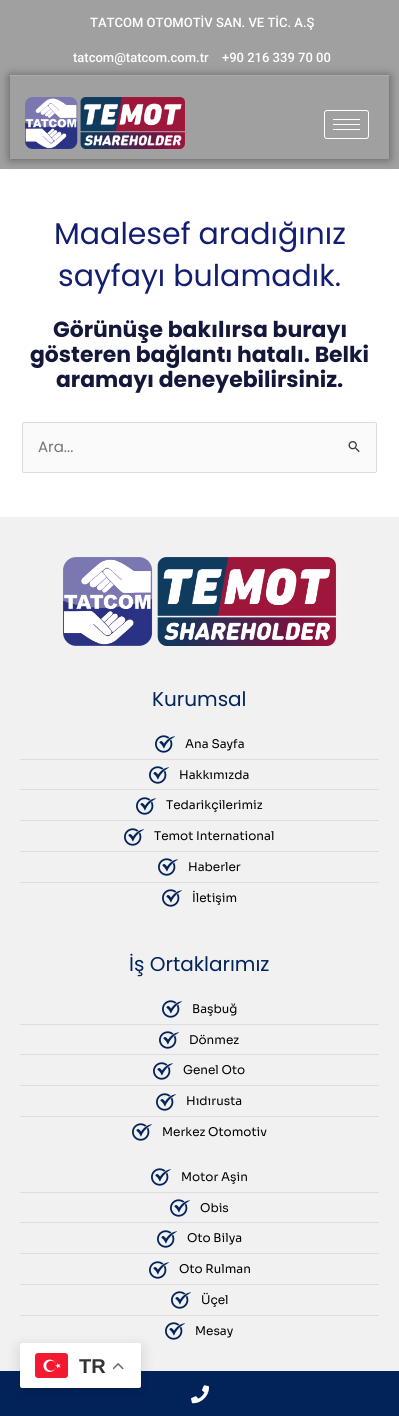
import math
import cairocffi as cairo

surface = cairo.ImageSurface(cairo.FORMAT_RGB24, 399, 1416)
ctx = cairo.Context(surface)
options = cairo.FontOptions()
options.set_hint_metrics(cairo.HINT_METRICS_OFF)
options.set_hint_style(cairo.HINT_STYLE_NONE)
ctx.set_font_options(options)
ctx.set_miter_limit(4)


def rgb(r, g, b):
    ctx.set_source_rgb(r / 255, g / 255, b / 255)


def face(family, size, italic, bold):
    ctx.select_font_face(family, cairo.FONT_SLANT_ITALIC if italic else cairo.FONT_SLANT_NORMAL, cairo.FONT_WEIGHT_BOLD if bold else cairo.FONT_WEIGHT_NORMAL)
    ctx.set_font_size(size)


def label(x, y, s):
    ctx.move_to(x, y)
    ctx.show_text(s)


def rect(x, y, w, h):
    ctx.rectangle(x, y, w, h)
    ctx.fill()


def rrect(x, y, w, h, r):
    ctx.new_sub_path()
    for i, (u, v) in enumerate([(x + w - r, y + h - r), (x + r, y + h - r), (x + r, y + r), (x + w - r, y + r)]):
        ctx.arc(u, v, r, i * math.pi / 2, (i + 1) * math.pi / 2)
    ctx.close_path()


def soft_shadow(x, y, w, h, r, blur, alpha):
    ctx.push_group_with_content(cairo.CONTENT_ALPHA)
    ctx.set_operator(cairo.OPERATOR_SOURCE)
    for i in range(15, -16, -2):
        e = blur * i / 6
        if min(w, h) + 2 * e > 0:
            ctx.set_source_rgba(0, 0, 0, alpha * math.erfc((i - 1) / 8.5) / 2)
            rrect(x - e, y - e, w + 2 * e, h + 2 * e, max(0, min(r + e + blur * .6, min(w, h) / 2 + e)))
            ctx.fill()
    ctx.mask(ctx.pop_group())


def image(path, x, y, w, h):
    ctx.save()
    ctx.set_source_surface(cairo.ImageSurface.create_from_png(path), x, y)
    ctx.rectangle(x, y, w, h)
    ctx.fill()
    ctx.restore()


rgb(255, 255, 255)
ctx.paint()
rgb(160, 160, 160)
rect(0, 0, 399, 169)
rgb(212, 214, 227)
rect(10, 75, 379, 1)
face('Roboto Medium', 13, 0, 0)
rgb(255, 255, 255)
label(90, 27, 'TATCOM OTOMOTİV SAN. VE TİC. A.Ş')
label(73, 62, 'tatcom@tatcom.com.tr')
label(222, 62, '+90 216 339 70 00')
ctx.save()
ctx.set_fill_rule(cairo.FILL_RULE_EVEN_ODD)
ctx.new_path()
ctx.move_to(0, 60)
ctx.line_to(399, 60)
ctx.line_to(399, 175)
ctx.line_to(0, 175)
ctx.close_path()
ctx.move_to(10, 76)
ctx.line_to(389, 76)
ctx.line_to(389, 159)
ctx.line_to(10, 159)
ctx.close_path()
ctx.clip()
rgb(0, 0, 0)
soft_shadow(10, 76, 379, 83, 0, 5, 0.45)
ctx.restore()
image('image0.png', 25, 97, 160, 52)
rrect(324.5, 110.5, 44, 28, 2.5)
ctx.set_line_width(1)
ctx.stroke()
rect(333, 119, 27, 1)
rect(333, 124, 27, 1)
rect(333, 129, 27, 1)
face('Poppins', 30, 0, 0)
rgb(20, 30, 113)
label(54, 244, 'Maalesef aradığınız')
label(58, 286, 'sayfayı bulamadık.')
face('Poppins', 21.9, 0, 1)
rgb(19, 23, 57)
label(53, 337, 'Görünüşe bakılırsa burayı')
label(30, 362, 'gösteren bağlantı hatalı. Belki')
label(56, 387, 'aramayı deneyebilirsiniz.')
rgb(250, 250, 250)
rrect(22.5, 422.5, 354, 50, 1.5)
ctx.fill_preserve()
rgb(221, 221, 221)
ctx.stroke()
face('Poppins', 15, 0, 0)
rgb(117, 117, 117)
label(38, 452, 'Ara...')
image('image1.png', 348, 441, 12, 12)
rgb(241, 241, 241)
rect(0, 517, 399, 854)
image('image2.png', 63, 557, 273, 89)
face('Poppins', 20, 0, 0)
rgb(2, 35, 90)
label(152, 706, 'Kurumsal')
image('image3.png', 155, 735, 20, 18)
face('Sora', 12, 0, 0)
rgb(0, 0, 0)
label(185, 748, 'Ana Sayfa')
rgb(221, 221, 221)
rect(20, 759, 359, 1)
image('image3.png', 149, 766, 20, 18)
rgb(0, 0, 0)
label(179, 779, 'Hakkımızda')
rgb(221, 221, 221)
rect(20, 789, 359, 1)
image('image3.png', 136, 797, 20, 18)
rgb(0, 0, 0)
label(166, 809, 'Tedarikçilerimiz')
rgb(221, 221, 221)
rect(20, 820, 359, 1)
image('image3.png', 124, 828, 20, 18)
rgb(0, 0, 0)
label(154, 840, 'Temot International')
rgb(221, 221, 221)
rect(20, 851, 359, 1)
image('image3.png', 158, 858, 20, 18)
rgb(0, 0, 0)
label(188, 871, 'Haberler')
rgb(221, 221, 221)
rect(20, 882, 359, 1)
image('image3.png', 162, 889, 20, 18)
rgb(0, 0, 0)
label(192, 902, 'İletişim')
face('Poppins', 20, 0, 0)
rgb(2, 35, 90)
label(129, 971, 'İş Ortaklarımız')
image('image3.png', 162, 1000, 20, 18)
face('Sora', 12, 0, 0)
rgb(0, 0, 0)
label(192, 1013, 'Başbuğ')
rgb(221, 221, 221)
rect(20, 1024, 359, 1)
image('image3.png', 159, 1031, 20, 18)
rgb(0, 0, 0)
label(189, 1044, 'Dönmez')
rgb(221, 221, 221)
rect(20, 1054, 359, 1)
image('image3.png', 153, 1062, 20, 18)
rgb(0, 0, 0)
label(183, 1074, 'Genel Oto')
rgb(221, 221, 221)
rect(20, 1085, 359, 1)
image('image3.png', 156, 1093, 20, 18)
rgb(0, 0, 0)
label(186, 1105, 'Hıdırusta')
rgb(221, 221, 221)
rect(20, 1116, 359, 1)
image('image3.png', 132, 1123, 20, 18)
rgb(0, 0, 0)
label(162, 1136, 'Merkez Otomotiv')
image('image3.png', 151, 1168, 20, 18)
label(181, 1181, 'Motor Aşin')
rgb(221, 221, 221)
rect(20, 1192, 359, 1)
image('image3.png', 170, 1199, 20, 18)
rgb(0, 0, 0)
label(200, 1212, 'Obis')
rgb(221, 221, 221)
rect(20, 1222, 359, 1)
image('image3.png', 157, 1230, 20, 18)
rgb(0, 0, 0)
label(187, 1242, 'Oto Bilya')
rgb(221, 221, 221)
rect(20, 1253, 359, 1)
image('image3.png', 149, 1261, 20, 18)
rgb(0, 0, 0)
label(179, 1273, 'Oto Rulman')
rgb(221, 221, 221)
rect(20, 1284, 359, 1)
image('image3.png', 171, 1291, 20, 18)
rgb(0, 0, 0)
label(201, 1304, 'Üçel')
rgb(221, 221, 221)
rect(20, 1315, 359, 1)
image('image3.png', 165, 1322, 20, 18)
rgb(0, 0, 0)
label(195, 1335, 'Mesay')
rgb(2, 35, 90)
rect(0, 1371, 399, 45)
rgb(0, 0, 0)
soft_shadow(20, 1348, 121, 45, 2, 7.5, 0.15)
rgb(255, 255, 255)
rrect(20, 1343, 121, 45, 2)
ctx.fill()
image('image4.png', 35, 1353, 33, 25)
face('Liberation Sans', 20, 0, 1)
rgb(51, 51, 51)
label(79, 1373, 'TR')
image('image5.png', 113, 1363, 11, 7)
image('image6.png', 191, 1385, 18, 19)
surface.write_to_png('render.png')
